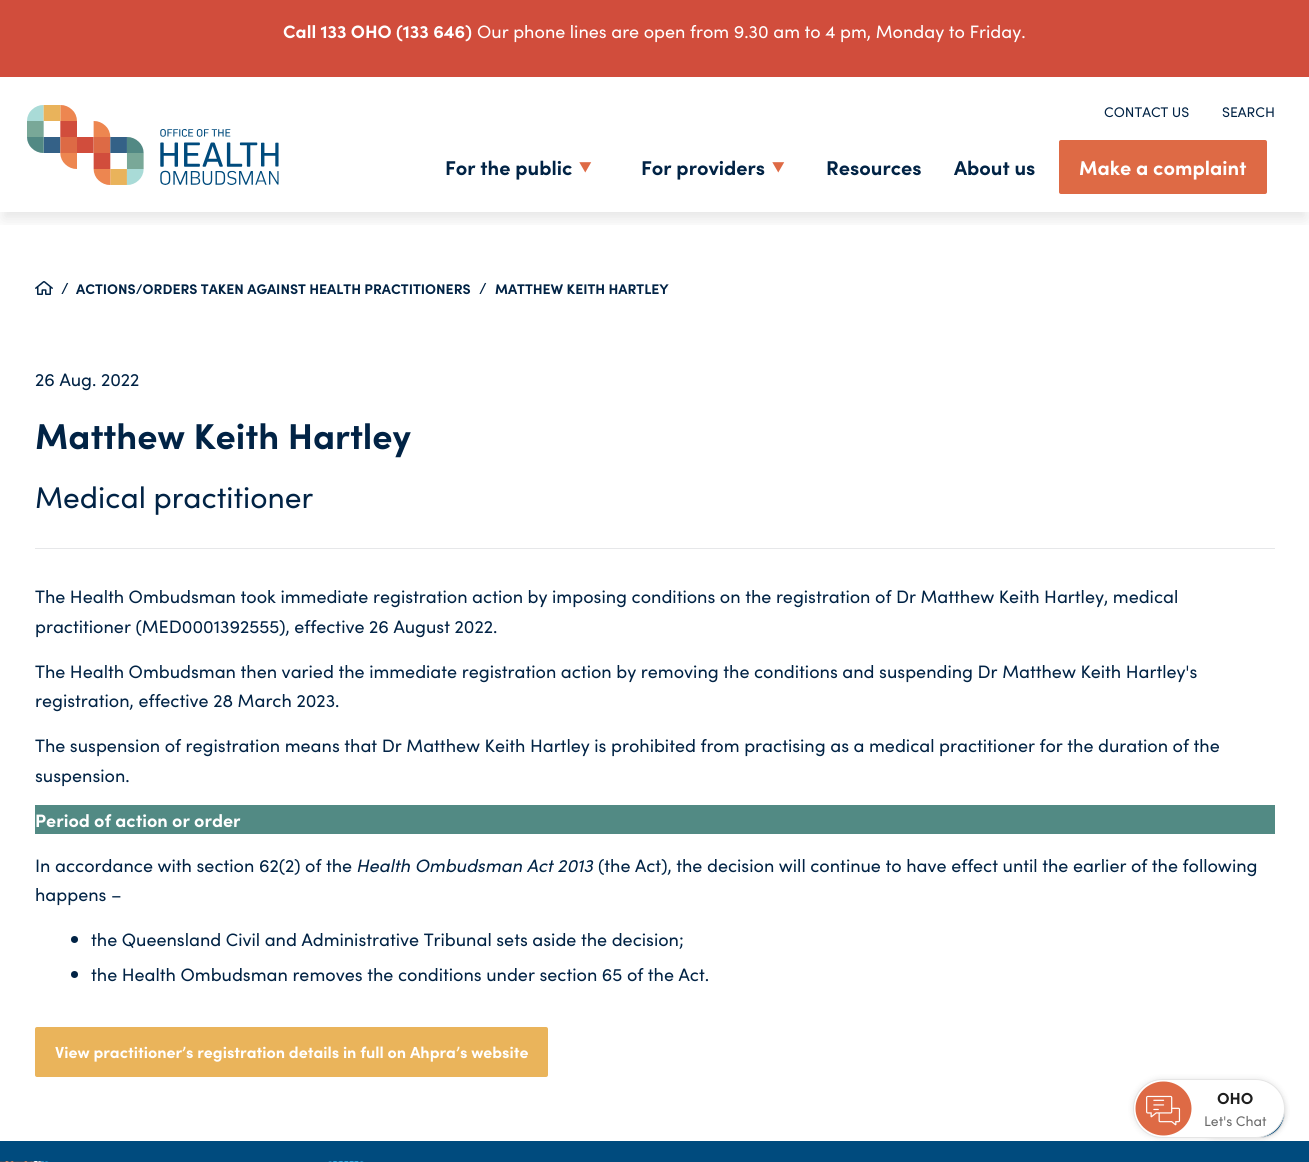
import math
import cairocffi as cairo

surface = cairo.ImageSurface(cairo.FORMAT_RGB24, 1309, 1162)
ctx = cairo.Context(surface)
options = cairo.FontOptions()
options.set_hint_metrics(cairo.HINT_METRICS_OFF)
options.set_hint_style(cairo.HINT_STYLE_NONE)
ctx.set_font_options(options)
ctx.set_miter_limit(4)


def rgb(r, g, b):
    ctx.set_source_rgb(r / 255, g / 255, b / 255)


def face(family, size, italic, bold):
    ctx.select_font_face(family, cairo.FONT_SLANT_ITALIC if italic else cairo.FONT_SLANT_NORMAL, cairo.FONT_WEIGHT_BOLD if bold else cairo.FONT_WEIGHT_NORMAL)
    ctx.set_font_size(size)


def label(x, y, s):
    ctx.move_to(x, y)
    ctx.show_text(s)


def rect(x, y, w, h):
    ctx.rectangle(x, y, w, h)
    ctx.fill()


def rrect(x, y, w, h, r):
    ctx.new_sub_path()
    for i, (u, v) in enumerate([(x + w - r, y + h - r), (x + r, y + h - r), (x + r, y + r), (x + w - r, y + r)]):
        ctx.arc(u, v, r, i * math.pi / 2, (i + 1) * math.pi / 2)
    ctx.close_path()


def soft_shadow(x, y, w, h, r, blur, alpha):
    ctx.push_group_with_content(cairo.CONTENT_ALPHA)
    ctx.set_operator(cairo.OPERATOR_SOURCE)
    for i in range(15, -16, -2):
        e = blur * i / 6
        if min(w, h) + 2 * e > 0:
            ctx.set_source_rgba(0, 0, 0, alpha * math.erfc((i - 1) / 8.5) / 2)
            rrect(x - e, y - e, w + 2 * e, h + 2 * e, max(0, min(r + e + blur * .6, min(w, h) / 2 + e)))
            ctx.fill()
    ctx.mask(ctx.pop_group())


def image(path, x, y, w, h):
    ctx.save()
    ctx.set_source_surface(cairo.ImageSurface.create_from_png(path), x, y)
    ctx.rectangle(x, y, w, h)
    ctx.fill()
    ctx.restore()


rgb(255, 255, 255)
ctx.paint()
rgb(209, 77, 60)
rect(0, 0, 1309, 77)
face('Sofia', 18, 0, 1)
rgb(255, 255, 255)
label(283, 38, 'Call 133 OHO (133 646)')
face('Sofia', 18, 0, 0)
label(477, 38, 'Our phone lines are open from 9.30 am to 4 pm, Monday to Friday.')
ctx.save()
ctx.rectangle(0, 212, 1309, 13)
ctx.clip()
rgb(0, 0, 0)
soft_shadow(3, 90, 1303, 129, 0, 7.5, 0.1)
ctx.restore()
image('image0.png', 27, 105, 252, 80)
face('Sofia', 14, 0, 0)
rgb(1, 35, 69)
label(1104, 117, 'CONTACT US')
label(1222, 117, 'SEARCH')
face('Sofia', 20, 0, 1)
label(445, 175, 'For the public')
face('FreeSans', 20, 0, 1)
rgb(222, 106, 69)
label(577, 175, '⯆')
face('Sofia', 20, 0, 1)
rgb(1, 35, 69)
label(641, 175, 'For providers')
face('FreeSans', 20, 0, 1)
rgb(222, 106, 69)
label(770, 175, '⯆')
face('Sofia', 20, 0, 1)
rgb(1, 35, 69)
label(826, 175, 'Resources')
label(954, 175, 'About us')
rgb(222, 106, 69)
rrect(1059, 140, 208, 54, 2)
ctx.fill()
rgb(255, 255, 255)
label(1079, 175, 'Make a complaint')
image('image1.png', 35, 281, 18, 14)
face('Sofia', 16, 0, 0)
rgb(1, 35, 69)
label(61, 294, '/')
face('Sofia', 14, 0, 1)
label(76, 294, 'ACTIONS/ORDERS TAKEN AGAINST HEALTH PRACTITIONERS')
face('Sofia', 16, 0, 0)
label(479, 294, '/')
face('Sofia', 14, 0, 1)
label(495, 294, 'MATTHEW KEITH HARTLEY')
face('Sofia', 18, 0, 0)
label(35, 386, '26 Aug. 2022')
face('Sofia', 36, 0, 1)
label(35, 449, 'Matthew Keith Hartley')
face('Sofia', 30, 0, 0)
label(35, 508, 'Medical practitioner')
rgb(230, 231, 233)
rect(35, 548, 1240, 1)
face('Sofia', 18, 0, 0)
rgb(1, 35, 69)
label(35, 603, 'The Health Ombudsman took immediate registration action by imposing conditions on the registration of Dr Matthew Keith Hartley, medical')
label(35, 633, 'practitioner (MED0001392555), effective 26 August 2022.')
label(35, 678, 'The Health Ombudsman then varied the immediate registration action by removing the conditions and suspending Dr Matthew Keith Hartley\'s')
label(35, 707, 'registration, effective 28 March 2023.')
label(35, 752, 'The suspension of registration means that Dr Matthew Keith Hartley is prohibited from practising as a medical practitioner for the duration of the')
label(35, 782, 'suspension.')
rgb(82, 138, 132)
rect(35, 805, 1240, 29)
face('Sofia', 18, 0, 1)
rgb(255, 255, 255)
label(35, 827, 'Period of action or order')
face('Sofia', 18, 0, 0)
rgb(1, 35, 69)
label(35, 872, 'In accordance with section 62(2) of the')
face('Sofia', 18, 1, 0)
label(356, 872, 'Health Ombudsman Act 2013')
face('Sofia', 18, 0, 0)
label(598, 872, '(the Act), the decision will continue to have effect until the earlier of the following')
label(35, 901, 'happens –')
ctx.new_path()
ctx.arc(74.5, 939.5, 3.5, 0, 2 * math.pi)
ctx.fill()
label(91, 946, 'the Queensland Civil and Administrative Tribunal sets aside the decision;')
ctx.new_path()
ctx.arc(74.5, 974.5, 3.5, 0, 2 * math.pi)
ctx.fill()
label(91, 981, 'the Health Ombudsman removes the conditions under section 65 of the Act.')
rgb(234, 180, 91)
rrect(35, 1027, 513, 50, 2)
ctx.fill()
face('Sofia', 16, 0, 1)
rgb(255, 255, 255)
label(55, 1058, 'View practitioner’s registration details in full on Ahpra’s website')
rgb(0, 75, 126)
rect(0, 1141, 1309, 21)
rgb(0, 0, 0)
soft_shadow(1194, 1088, 91, 50, 25, 3, 0.1)
rgb(0, 75, 126)
rrect(1194.5, 1088.5, 90, 49, 24.5)
ctx.fill_preserve()
rgb(229, 229, 229)
ctx.set_line_width(1)
ctx.stroke()
rgb(0, 0, 0)
soft_shadow(1133, 1079, 152, 59, 29.5, 3, 0.1)
rgb(255, 255, 255)
rrect(1133.5, 1079.5, 151, 58, 29)
ctx.fill_preserve()
rgb(229, 229, 229)
ctx.stroke()
image('image2.png', 1135, 1081, 57, 55)
rgb(30, 30, 30)
label(1217, 1104, 'OHO')
face('Sofia', 14, 0, 0)
rgb(107, 107, 107)
label(1204, 1126, 'Let\'s Chat')
image('image3.png', 0, 1161, 364, 1)
surface.write_to_png('render.png')
